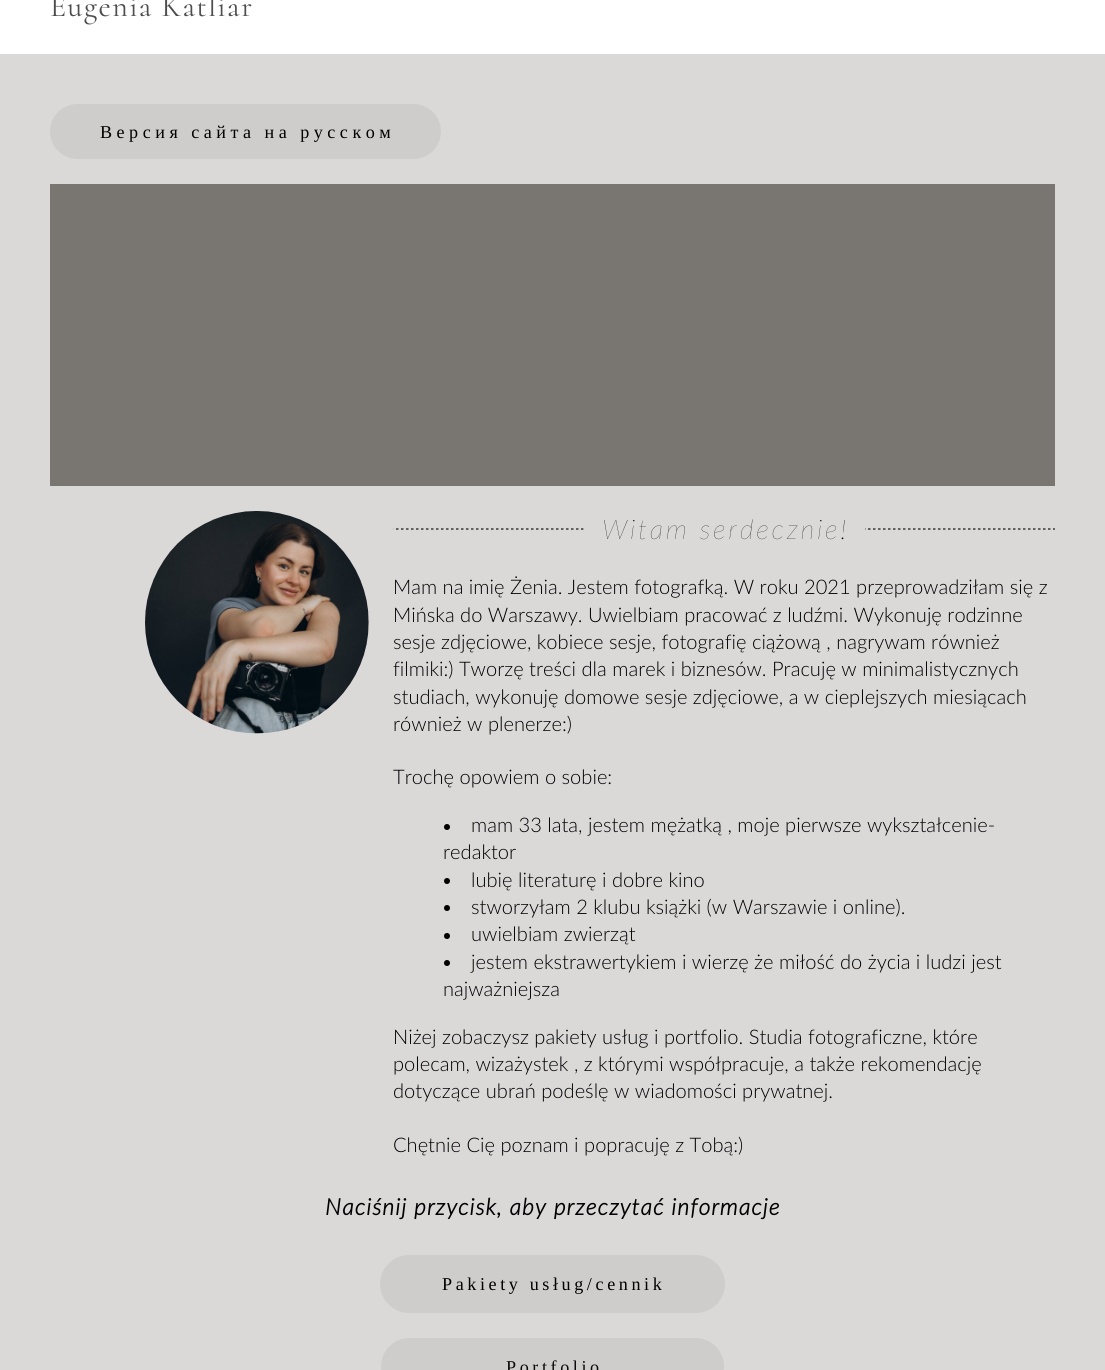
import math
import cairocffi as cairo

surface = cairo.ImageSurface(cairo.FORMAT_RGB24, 1105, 1370)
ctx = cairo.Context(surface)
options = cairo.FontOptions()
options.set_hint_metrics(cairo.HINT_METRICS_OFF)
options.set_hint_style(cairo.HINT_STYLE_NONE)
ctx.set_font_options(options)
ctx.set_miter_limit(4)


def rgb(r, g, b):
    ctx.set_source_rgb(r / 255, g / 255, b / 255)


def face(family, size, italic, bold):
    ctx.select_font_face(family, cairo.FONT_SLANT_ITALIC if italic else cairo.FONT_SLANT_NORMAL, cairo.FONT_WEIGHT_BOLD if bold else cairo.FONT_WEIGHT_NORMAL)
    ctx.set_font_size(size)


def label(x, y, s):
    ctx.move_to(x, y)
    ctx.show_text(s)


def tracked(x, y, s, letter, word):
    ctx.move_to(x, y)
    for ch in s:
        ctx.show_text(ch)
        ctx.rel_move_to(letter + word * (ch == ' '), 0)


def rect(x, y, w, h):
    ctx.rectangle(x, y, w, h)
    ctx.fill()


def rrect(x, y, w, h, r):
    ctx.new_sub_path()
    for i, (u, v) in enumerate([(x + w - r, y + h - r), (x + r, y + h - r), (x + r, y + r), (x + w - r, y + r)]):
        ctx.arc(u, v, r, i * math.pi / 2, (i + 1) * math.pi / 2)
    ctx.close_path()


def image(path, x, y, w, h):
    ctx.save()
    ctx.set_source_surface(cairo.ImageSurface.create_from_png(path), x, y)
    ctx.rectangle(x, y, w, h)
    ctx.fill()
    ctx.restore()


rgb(219, 216, 216)
ctx.paint()
rgb(255, 255, 255)
rect(0, 0, 1105, 54)
face('Cormorant', 30, 0, 0)
rgb(77, 77, 77)
tracked(50, 16, 'Eugenia Katliar', 1.5, 0)
rgb(207, 205, 203)
rrect(50, 104, 391, 55, 27.5)
ctx.fill()
face('Tinos', 18.1, 0, 0)
rgb(0, 0, 0)
tracked(100, 138, 'Версия сайта на русском', 4.5, 0)
rgb(121, 117, 113)
rect(50, 184, 1005, 302)
image('image0.png', 145, 511, 224, 223)
image('image1.png', 393, 528, 191, 2)
face('Lato ExtraLight', 27.25, 1, 0)
rgb(0, 0, 0)
tracked(602, 539, 'Witam serdecznie!', 2.75, 0)
image('image2.png', 865, 528, 190, 2)
face('Lato Light', 20.1, 0, 0)
label(393, 594, 'Mam na imię Żenia. Jestem fotografką. W roku 2021 przeprowadziłam się z')
label(393, 622, 'Mińska do Warszawy. Uwielbiam pracować z ludźmi. Wykonuję rodzinne')
label(393, 649, 'sesje zdjęciowe, kobiece sesje, fotografię ciążową , nagrywam również')
label(393, 676, 'filmiki:) Tworzę treści dla marek i biznesów. Pracuję w minimalistycznych')
label(393, 704, 'studiach, wykonuję domowe sesje zdjęciowe, a w cieplejszych miesiącach')
label(393, 731, 'również w plenerze:)')
label(393, 784, 'Trochę opowiem o sobie:')
ctx.new_path()
ctx.arc(447, 827, 3, 0, 2 * math.pi)
ctx.fill()
label(471, 832, 'mam 33 lata, jestem mężatką , moje pierwsze wykształcenie-')
label(443, 859, 'redaktor')
ctx.new_path()
ctx.arc(447, 881, 3, 0, 2 * math.pi)
ctx.fill()
label(471, 887, 'lubię literaturę i dobre kino')
ctx.new_path()
ctx.arc(447, 908, 3, 0, 2 * math.pi)
ctx.fill()
label(471, 914, 'stworzyłam 2 klubu książki (w Warszawie i online).')
ctx.new_path()
ctx.arc(447, 936, 3, 0, 2 * math.pi)
ctx.fill()
label(471, 941, 'uwielbiam zwierząt')
ctx.new_path()
ctx.arc(447, 963, 3, 0, 2 * math.pi)
ctx.fill()
label(471, 969, 'jestem ekstrawertykiem i wierzę że miłość do życia i ludzi jest')
label(443, 996, 'najważniejsza')
label(393, 1044, 'Niżej zobaczysz pakiety usług i portfolio. Studia fotograficzne, które')
label(393, 1071, 'polecam, wizażystek , z którymi współpracuje, a także rekomendację')
label(393, 1098, 'dotyczące ubrań podeślę w wiadomości prywatnej.')
label(393, 1152, 'Chętnie Cię poznam i popracuję z Tobą:)')
face('Lato', 22.8, 1, 1)
tracked(325, 1215, 'Naciśnij przycisk, aby przeczytać informacje', 1.15, 0)
rgb(207, 205, 203)
rrect(380, 1255, 345, 58, 29)
ctx.fill()
face('Tinos', 18.1, 0, 0)
rgb(0, 0, 0)
tracked(442, 1290, 'Pakiety usług/cennik', 3.6, 0)
rgb(207, 205, 203)
rrect(381, 1338, 343, 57, 28.5)
ctx.fill()
rgb(10, 10, 10)
tracked(506, 1373, 'Portfolio', 3.6, 0)
surface.write_to_png('render.png')
